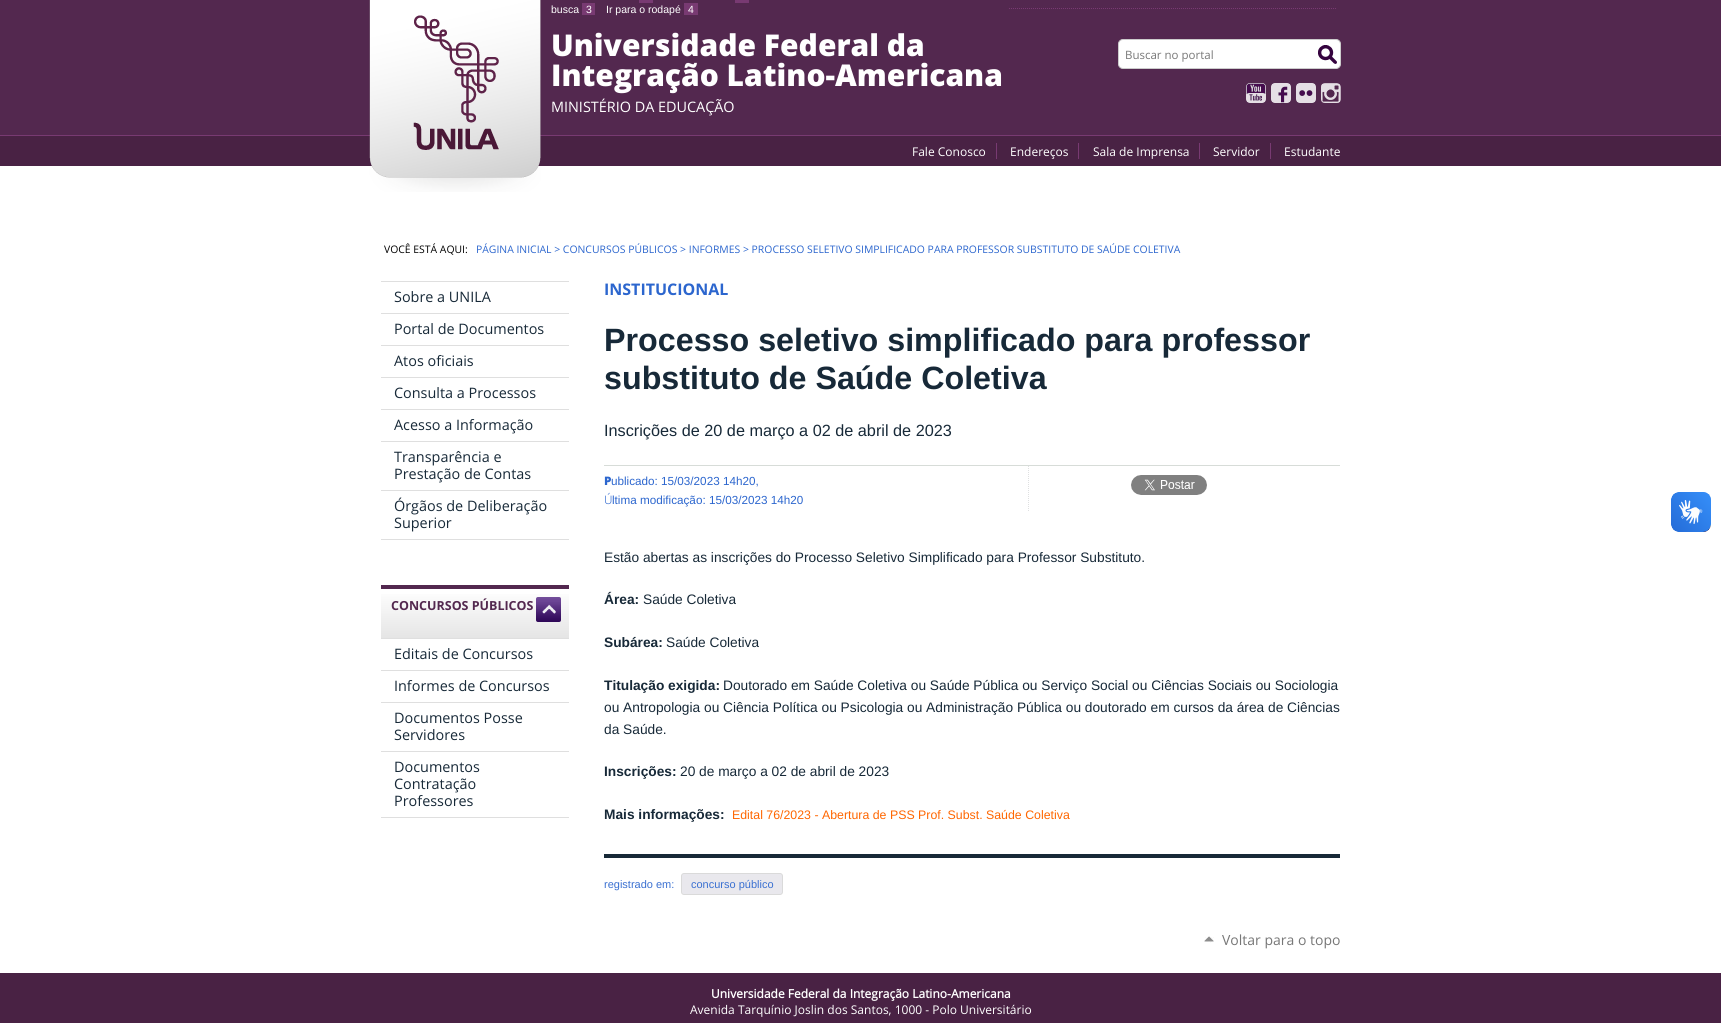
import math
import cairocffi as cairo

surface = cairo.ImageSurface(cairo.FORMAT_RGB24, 1721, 1023)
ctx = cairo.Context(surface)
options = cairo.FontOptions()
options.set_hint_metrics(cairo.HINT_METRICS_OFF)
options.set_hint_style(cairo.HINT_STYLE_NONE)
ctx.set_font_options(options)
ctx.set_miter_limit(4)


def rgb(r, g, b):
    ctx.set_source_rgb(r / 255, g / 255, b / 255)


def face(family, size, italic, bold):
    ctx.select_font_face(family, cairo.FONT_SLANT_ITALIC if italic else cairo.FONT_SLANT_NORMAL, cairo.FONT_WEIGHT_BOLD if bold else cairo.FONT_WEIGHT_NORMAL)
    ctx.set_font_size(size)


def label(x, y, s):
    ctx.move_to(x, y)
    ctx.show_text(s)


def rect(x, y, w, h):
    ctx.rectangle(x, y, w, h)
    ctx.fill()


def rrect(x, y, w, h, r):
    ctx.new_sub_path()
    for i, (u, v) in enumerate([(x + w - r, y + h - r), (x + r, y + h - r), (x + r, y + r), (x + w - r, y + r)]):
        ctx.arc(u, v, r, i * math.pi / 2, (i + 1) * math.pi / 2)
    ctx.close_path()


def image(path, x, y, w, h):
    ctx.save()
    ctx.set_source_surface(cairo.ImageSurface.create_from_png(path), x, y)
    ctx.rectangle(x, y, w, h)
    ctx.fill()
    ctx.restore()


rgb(255, 255, 255)
ctx.paint()
rgb(83, 40, 79)
rect(0, 0, 1721, 135)
rgb(120, 58, 114)
rect(639, 0, 14, 3)
rect(735, 0, 14, 3)
face('Liberation Sans', 10.5, 0, 0)
rgb(255, 255, 255)
label(551, 13, 'busca')
rgb(120, 58, 114)
rect(582, 3, 13, 12)
rgb(255, 255, 255)
label(586, 13, '3')
label(606, 13, 'Ir para o rodapé')
rgb(120, 58, 114)
rect(684, 3, 14, 12)
rgb(255, 255, 255)
label(688, 13, '4')
ctx.new_path()
ctx.move_to(1009, 8.5)
ctx.line_to(1337, 8.5)
rgb(120, 58, 114)
ctx.set_line_width(1)
ctx.set_dash([1, 1])
ctx.stroke()
rgb(73, 34, 68)
rect(0, 136, 1721, 30)
rgb(120, 58, 114)
rect(0, 135, 1721, 1)
image('image0.png', 369, 0, 172, 192)
face('Open Sans ExtraBold', 30, 0, 0)
rgb(255, 255, 255)
label(551, 56, 'Universidade Federal da')
label(551, 86, 'Integração Latino-Americana')
face('Open Sans', 14.4, 0, 0)
label(551, 112, 'MINISTÉRIO DA EDUCAÇÃO')
rrect(1118.5, 39.5, 222, 29, 4.5)
ctx.fill_preserve()
rgb(204, 204, 204)
ctx.set_dash([])
ctx.stroke()
face('Open Sans', 11.5, 0, 0)
rgb(119, 119, 119)
label(1125, 59, 'Buscar no portal')
image('image1.png', 1318, 45, 19, 19)
image('image2.png', 1246, 83, 20, 20)
image('image3.png', 1271, 83, 20, 20)
image('image4.png', 1296, 83, 20, 20)
image('image5.png', 1321, 83, 20, 20)
face('Open Sans', 12, 0, 0)
rgb(255, 255, 255)
label(912, 156, 'Fale Conosco')
rgb(120, 58, 114)
rect(996, 143, 1, 16)
rgb(255, 255, 255)
label(1010, 156, 'Endereços')
rgb(120, 58, 114)
rect(1078, 143, 1, 16)
rgb(255, 255, 255)
label(1093, 156, 'Sala de Imprensa')
rgb(120, 58, 114)
rect(1199, 143, 1, 16)
rgb(255, 255, 255)
label(1213, 156, 'Servidor')
rgb(120, 58, 114)
rect(1270, 143, 1, 16)
rgb(255, 255, 255)
label(1284, 156, 'Estudante')
face('Open Sans', 10.4, 0, 0)
rgb(0, 0, 0)
label(384, 253, 'VOCÊ ESTÁ AQUI:')
rgb(44, 102, 206)
label(476, 253, 'PÁGINA INICIAL > CONCURSOS PÚBLICOS > INFORMES > PROCESSO SELETIVO SIMPLIFICADO PARA PROFESSOR SUBSTITUTO DE SAÚDE COLETIVA')
rgb(223, 223, 223)
rect(381, 281, 188, 1)
face('Open Sans', 14.4, 0, 0)
rgb(23, 41, 56)
label(394, 302, 'Sobre a UNILA')
rgb(223, 223, 223)
rect(381, 313, 188, 1)
rgb(23, 41, 56)
label(394, 334, 'Portal de Documentos')
rgb(223, 223, 223)
rect(381, 345, 188, 1)
rgb(23, 41, 56)
label(394, 366, 'Atos oficiais')
rgb(223, 223, 223)
rect(381, 377, 188, 1)
rgb(23, 41, 56)
label(394, 398, 'Consulta a Processos')
rgb(223, 223, 223)
rect(381, 409, 188, 1)
rgb(23, 41, 56)
label(394, 430, 'Acesso a Informação')
rgb(223, 223, 223)
rect(381, 441, 188, 1)
rgb(23, 41, 56)
label(394, 462, 'Transparência e')
label(394, 479, 'Prestação de Contas')
rgb(223, 223, 223)
rect(381, 490, 188, 1)
rect(381, 539, 188, 1)
rgb(23, 41, 56)
label(394, 511, 'Órgãos de Deliberação')
label(394, 528, 'Superior')
gradient = cairo.LinearGradient(475, 589, 475, 638)
gradient.add_color_stop_rgba(0, 1, 1, 1, 1)
gradient.add_color_stop_rgba(1, 0.898, 0.898, 0.898, 1)
ctx.set_source(gradient)
rect(381, 594, 188, 44)
rgb(83, 40, 79)
rect(381, 585, 188, 4)
face('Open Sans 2', 12.5, 0, 1)
label(391, 610, 'CONCURSOS PÚBLICOS')
rgb(237, 239, 241)
rect(543, 606, 13, 7)
image('image6.png', 536, 597, 25, 25)
rgb(223, 223, 223)
rect(381, 638, 188, 1)
face('Open Sans', 14.4, 0, 0)
rgb(23, 41, 56)
label(394, 659, 'Editais de Concursos')
rgb(223, 223, 223)
rect(381, 670, 188, 1)
rgb(23, 41, 56)
label(394, 691, 'Informes de Concursos')
rgb(223, 223, 223)
rect(381, 702, 188, 1)
rgb(23, 41, 56)
label(394, 723, 'Documentos Posse')
label(394, 740, 'Servidores')
rgb(223, 223, 223)
rect(381, 751, 188, 1)
rect(381, 817, 188, 1)
rgb(23, 41, 56)
label(394, 772, 'Documentos')
label(394, 789, 'Contratação')
label(394, 806, 'Professores')
face('Open Sans 2', 16, 0, 1)
rgb(44, 102, 206)
label(604, 295, 'INSTITUCIONAL')
face('Liberation Sans', 32.25, 0, 1)
rgb(23, 41, 56)
label(604, 351, 'Processo seletivo simplificado para professor')
label(604, 389, 'substituto de Saúde Coletiva')
rgb(215, 220, 216)
rect(604, 465, 736, 1)
face('Liberation Sans', 16.25, 0, 0)
rgb(23, 41, 56)
label(604, 436, 'Inscrições de 20 de março a 02 de abril de 2023')
face('Noto Sans Black', 11.7, 0, 0)
rgb(44, 102, 206)
label(604, 485, 'P')
face('Liberation Sans', 11.7, 0, 0)
label(611, 485, 'ublicado: 15/03/2023 14h20,')
face('Noto Sans Light', 11.7, 0, 0)
label(604, 504, 'Ú')
face('Liberation Sans', 11.7, 0, 0)
label(612, 504, 'ltima modificação: 15/03/2023 14h20')
ctx.new_path()
ctx.move_to(1028.5, 466)
ctx.line_to(1028.5, 511)
rgb(223, 224, 225)
ctx.set_dash([1, 1])
ctx.stroke()
image('image7.png', 1131, 475, 76, 20)
face('Liberation Sans', 13.73, 0, 0)
rgb(23, 41, 56)
label(604, 562, 'Estão abertas as inscrições do Processo Seletivo Simplificado para Professor Substituto.')
face('Liberation Sans', 13.73, 0, 1)
label(604, 604, 'Área:')
face('Liberation Sans', 13.73, 0, 0)
label(643, 604, 'Saúde Coletiva')
face('Liberation Sans', 13.73, 0, 1)
label(604, 647, 'Subárea:')
face('Liberation Sans', 13.73, 0, 0)
label(666, 647, 'Saúde Coletiva')
face('Liberation Sans', 13.73, 0, 1)
label(604, 690, 'Titulação exigida:')
face('Liberation Sans', 13.73, 0, 0)
label(723, 690, 'Doutorado em Saúde Coletiva ou Saúde Pública ou Serviço Social ou Ciências Sociais ou Sociologia')
label(604, 712, 'ou Antropologia ou Ciência Política ou Psicologia ou Administração Pública ou doutorado em cursos da área de Ciências')
label(604, 734, 'da Saúde.')
face('Liberation Sans', 13.73, 0, 1)
label(604, 776, 'Inscrições:')
face('Liberation Sans', 13.73, 0, 0)
label(680, 776, '20 de março a 02 de abril de 2023')
face('Liberation Sans', 13.73, 0, 1)
label(604, 819, 'Mais informações:')
face('Liberation Sans', 12.35, 0, 0)
rgb(255, 102, 0)
label(732, 819, 'Edital 76/2023 - Abertura de PSS Prof. Subst. Saúde Coletiva')
rgb(23, 41, 55)
rect(604, 854, 736, 4)
face('Liberation Sans', 11, 0, 0)
rgb(58, 112, 209)
label(604, 888, 'registrado em:')
rgb(233, 232, 237)
rrect(681.5, 873.5, 101, 21, 2.5)
ctx.fill_preserve()
rgb(218, 218, 218)
ctx.set_dash([])
ctx.stroke()
rgb(58, 112, 209)
label(691, 888, 'concurso público')
image('image8.png', 1204, 936, 10, 7)
face('Open Sans', 14, 0, 0)
rgb(119, 119, 119)
label(1222, 945, 'Voltar para o topo')
rgb(73, 34, 68)
rect(0, 973, 1721, 50)
face('Open Sans', 12, 0, 1)
rgb(255, 255, 255)
label(711, 998, 'Universidade Federal da Integração Latino-Americana')
face('Open Sans', 12, 0, 0)
label(690, 1014, 'Avenida Tarquínio Joslin dos Santos, 1000 - Polo Universitário')
image('image9.png', 1671, 492, 40, 40)
image('image10.png', 1671, 492, 40, 40)
surface.write_to_png('render.png')
